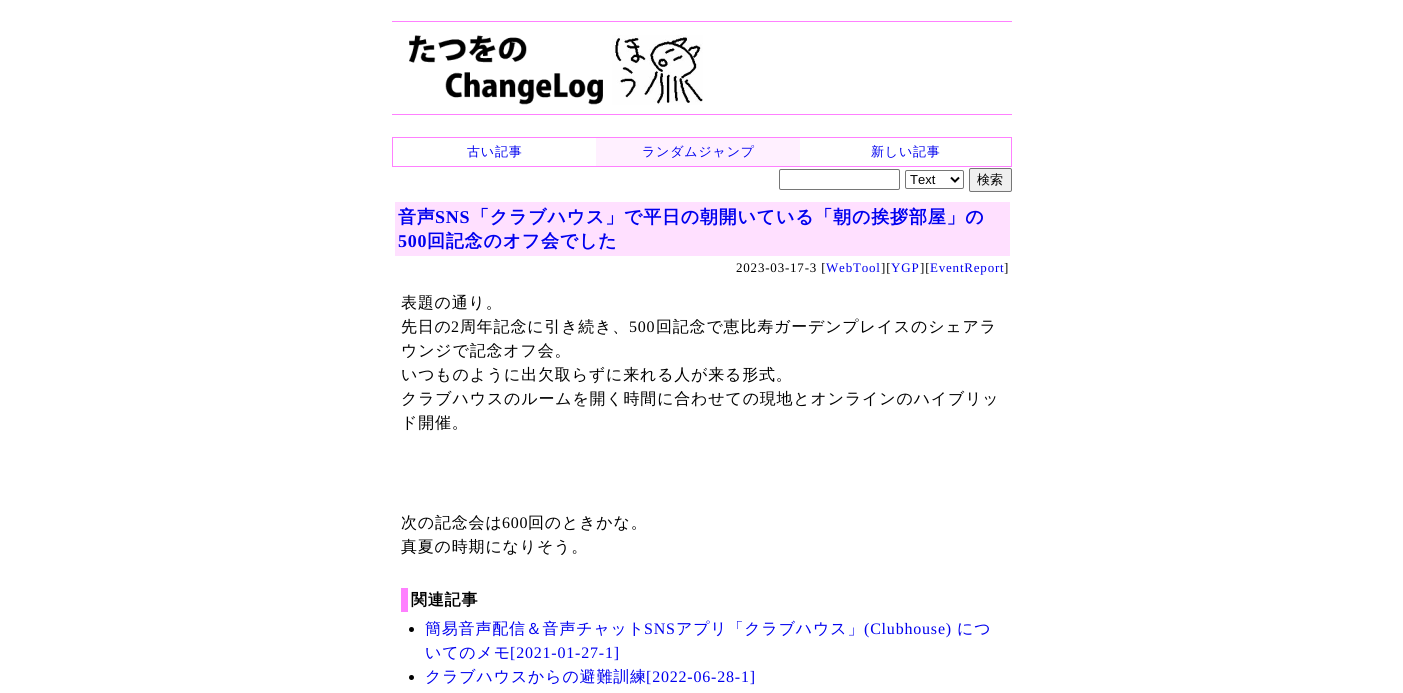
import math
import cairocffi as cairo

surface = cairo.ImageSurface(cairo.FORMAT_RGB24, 1403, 693)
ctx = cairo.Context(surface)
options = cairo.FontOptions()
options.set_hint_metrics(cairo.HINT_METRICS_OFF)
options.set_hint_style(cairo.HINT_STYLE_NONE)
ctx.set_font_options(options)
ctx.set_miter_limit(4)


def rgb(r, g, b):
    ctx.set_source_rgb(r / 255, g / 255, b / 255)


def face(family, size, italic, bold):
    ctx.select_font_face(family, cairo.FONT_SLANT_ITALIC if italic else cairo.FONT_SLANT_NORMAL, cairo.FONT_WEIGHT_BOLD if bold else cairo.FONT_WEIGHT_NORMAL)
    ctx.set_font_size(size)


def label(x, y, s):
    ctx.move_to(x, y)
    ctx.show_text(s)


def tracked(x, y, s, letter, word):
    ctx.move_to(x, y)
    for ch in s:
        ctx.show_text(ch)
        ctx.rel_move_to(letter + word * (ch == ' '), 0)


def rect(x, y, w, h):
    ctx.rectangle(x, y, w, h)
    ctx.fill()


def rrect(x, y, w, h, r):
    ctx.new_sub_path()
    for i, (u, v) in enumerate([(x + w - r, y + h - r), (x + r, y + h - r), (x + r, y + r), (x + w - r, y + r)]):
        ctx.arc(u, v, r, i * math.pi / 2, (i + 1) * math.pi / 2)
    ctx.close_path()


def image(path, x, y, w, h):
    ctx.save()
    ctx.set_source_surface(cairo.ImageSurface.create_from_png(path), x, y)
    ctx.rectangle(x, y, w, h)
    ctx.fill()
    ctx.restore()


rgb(255, 255, 255)
ctx.paint()
rgb(255, 128, 255)
rect(392, 21, 620, 1)
rect(392, 114, 620, 1)
image('image0.png', 409, 35, 294, 70)
ctx.rectangle(392.5, 137.5, 619, 29)
ctx.set_line_width(1)
ctx.stroke()
face('WenQuanYi Zen Hei Medium', 13, 0, 0)
rgb(0, 0, 238)
tracked(467, 156, '古い記事', 0.8, 0)
rgb(255, 240, 255)
rect(596, 138, 204, 28)
rgb(0, 0, 238)
tracked(642, 156, 'ランダムジャンプ', 0.8, 0)
tracked(871, 156, '新しい記事', 0.8, 0)
rrect(779.5, 169.5, 120, 20, 1.5)
rgb(118, 118, 118)
ctx.stroke()
rrect(905.5, 170.5, 58, 18, 1.5)
ctx.stroke()
ctx.new_path()
ctx.move_to(951, 177.5)
ctx.line_to(955, 181.5)
ctx.line_to(959, 177.5)
rgb(0, 0, 0)
ctx.set_line_width(2)
ctx.stroke()
face('Liberation Sans', 13, 0, 0)
label(910, 184, 'Text')
rgb(239, 239, 239)
rrect(969.5, 168.5, 42, 23, 1.5)
ctx.fill_preserve()
rgb(118, 118, 118)
ctx.set_line_width(1)
ctx.stroke()
face('WenQuanYi Zen Hei Medium', 13, 0, 0)
rgb(0, 0, 0)
label(977, 184, '検索')
rgb(255, 224, 255)
rect(395, 202, 615, 54)
face('WenQuanYi Zen Hei', 18, 0, 1)
rgb(0, 0, 238)
tracked(398, 223, '音声', 0.8, 0)
face('Liberation Serif', 18, 0, 1)
tracked(435, 223, 'SNS', 0.8, 0)
face('WenQuanYi Zen Hei', 18, 0, 1)
tracked(471, 223, '「クラブハウス」で平日の朝開いている「朝の挨拶部屋」の', 0.8, 0)
face('Liberation Serif', 18, 0, 1)
tracked(398, 247, '500', 0.8, 0)
face('WenQuanYi Zen Hei', 18, 0, 1)
tracked(427, 247, '回記念のオフ会でした', 0.8, 0)
face('Liberation Serif', 13, 0, 0)
rgb(0, 0, 0)
tracked(736, 272, '2023-03-17-3 [', 0.8, 0)
rgb(0, 0, 238)
tracked(826, 272, 'WebTool', 0.8, 0)
rgb(0, 0, 0)
tracked(881, 272, '][', 0.8, 0)
rgb(0, 0, 238)
tracked(891, 272, 'YGP', 0.8, 0)
rgb(0, 0, 0)
tracked(920, 272, '][', 0.8, 0)
rgb(0, 0, 238)
tracked(930, 272, 'EventReport', 0.8, 0)
rgb(0, 0, 0)
tracked(1004, 272, ']', 0.8, 0)
face('WenQuanYi Zen Hei Medium', 16, 0, 0)
tracked(401, 308, '表題の通り。', 0.8, 0)
tracked(401, 332, '先日の', 0.8, 0)
face('Liberation Serif', 16, 0, 0)
tracked(451, 332, '2', 0.8, 0)
face('WenQuanYi Zen Hei Medium', 16, 0, 0)
tracked(460, 332, '周年記念に引き続き、', 0.8, 0)
face('Liberation Serif', 16, 0, 0)
tracked(629, 332, '500', 0.8, 0)
face('WenQuanYi Zen Hei Medium', 16, 0, 0)
tracked(656, 332, '回記念で恵比寿ガーデンプレイスのシェアラ', 0.8, 0)
tracked(401, 356, 'ウンジで記念オフ会。', 0.8, 0)
tracked(401, 380, 'いつものように出欠取らずに来れる人が来る形式。', 0.8, 0)
tracked(401, 404, 'クラブハウスのルームを開く時間に合わせての現地とオンラインのハイブリッ', 0.8, 0)
tracked(401, 428, 'ド開催。', 0.8, 0)
tracked(401, 528, '次の記念会は', 0.8, 0)
face('Liberation Serif', 16, 0, 0)
tracked(502, 528, '600', 0.8, 0)
face('WenQuanYi Zen Hei Medium', 16, 0, 0)
tracked(528, 528, '回のときかな。', 0.8, 0)
tracked(401, 552, '真夏の時期になりそう。', 0.8, 0)
rgb(255, 128, 255)
rect(401, 588, 7, 24)
face('WenQuanYi Zen Hei', 16, 0, 1)
rgb(0, 0, 0)
tracked(411, 605, '関連記事', 0.8, 0)
ctx.new_path()
ctx.arc(411.5, 629.5, 2.5, 0, 2 * math.pi)
ctx.fill()
face('WenQuanYi Zen Hei Medium', 16, 0, 0)
rgb(0, 0, 238)
tracked(425, 634, '簡易音声配信＆音声チャット', 0.8, 0)
face('Liberation Serif', 16, 0, 0)
tracked(644, 634, 'SNS', 0.8, 0)
face('WenQuanYi Zen Hei Medium', 16, 0, 0)
tracked(676, 634, 'アプリ「クラブハウス」', 0.8, 0)
face('Liberation Serif', 16, 0, 0)
tracked(864, 634, '(Clubhouse)', 0.8, 0)
face('WenQuanYi Zen Hei Medium', 16, 0, 0)
tracked(957, 634, 'につ', 0.8, 0)
tracked(425, 658, 'いてのメモ', 0.8, 0)
face('Liberation Serif', 16, 0, 0)
tracked(510, 658, '[2021-01-27-1]', 0.8, 0)
rgb(0, 0, 0)
ctx.new_path()
ctx.arc(411.5, 677.5, 2.5, 0, 2 * math.pi)
ctx.fill()
face('WenQuanYi Zen Hei Medium', 16, 0, 0)
rgb(0, 0, 238)
tracked(425, 682, 'クラブハウスからの避難訓練', 0.8, 0)
face('Liberation Serif', 16, 0, 0)
tracked(646, 682, '[2022-06-28-1]', 0.8, 0)
surface.write_to_png('render.png')
